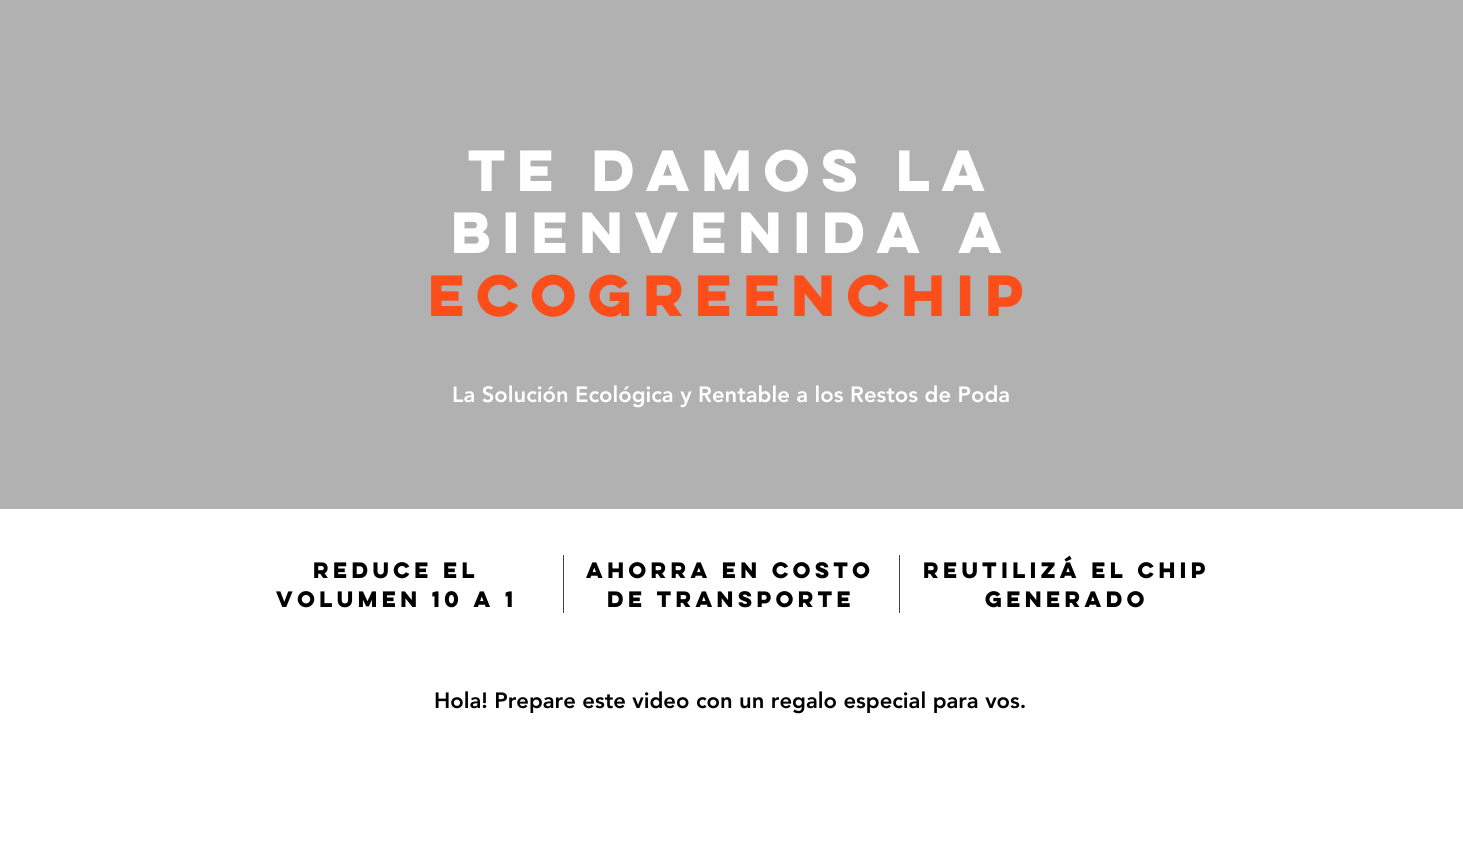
import math
import cairocffi as cairo

surface = cairo.ImageSurface(cairo.FORMAT_RGB24, 1463, 841)
ctx = cairo.Context(surface)
options = cairo.FontOptions()
options.set_hint_metrics(cairo.HINT_METRICS_OFF)
options.set_hint_style(cairo.HINT_STYLE_NONE)
ctx.set_font_options(options)
ctx.set_miter_limit(4)


def rgb(r, g, b):
    ctx.set_source_rgb(r / 255, g / 255, b / 255)


def face(family, size, italic, bold):
    ctx.select_font_face(family, cairo.FONT_SLANT_ITALIC if italic else cairo.FONT_SLANT_NORMAL, cairo.FONT_WEIGHT_BOLD if bold else cairo.FONT_WEIGHT_NORMAL)
    ctx.set_font_size(size)


def label(x, y, s):
    ctx.move_to(x, y)
    ctx.show_text(s)


def rect(x, y, w, h):
    ctx.rectangle(x, y, w, h)
    ctx.fill()


rgb(255, 255, 255)
ctx.paint()
rgb(177, 177, 177)
rect(0, 0, 1463, 509)
face('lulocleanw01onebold', 52, 0, 1)
rgb(255, 255, 255)
label(468, 191, 'TE DAMOS LA')
label(451, 253, 'BIENVENIDA A')
rgb(252, 78, 26)
label(428, 316, 'ECOGREENCHIP')
face('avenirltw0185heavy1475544 Black', 22, 0, 0)
rgb(255, 255, 255)
label(452, 402, 'La Solución Ecológica y Rentable a los Restos de Poda')
face('lulocleanw01onebold', 20, 0, 1)
rgb(0, 0, 0)
label(313, 578, 'Reduce el')
label(276, 607, 'volumen 10 a 1')
rgb(66, 66, 66)
rect(563, 555, 1, 58)
rgb(0, 0, 0)
label(586, 578, 'ahorrA en costo')
label(607, 607, 'de transporte')
rgb(66, 66, 66)
rect(899, 555, 1, 58)
rgb(0, 0, 0)
label(923, 578, 'REUTILIZÁ EL CHIP')
label(985, 607, 'GENERADO')
face('avenirltw0185heavy1475544 Black', 22, 0, 0)
label(434, 708, 'Hola! Prepare este video con un regalo especial para vos.')
surface.write_to_png('render.png')
